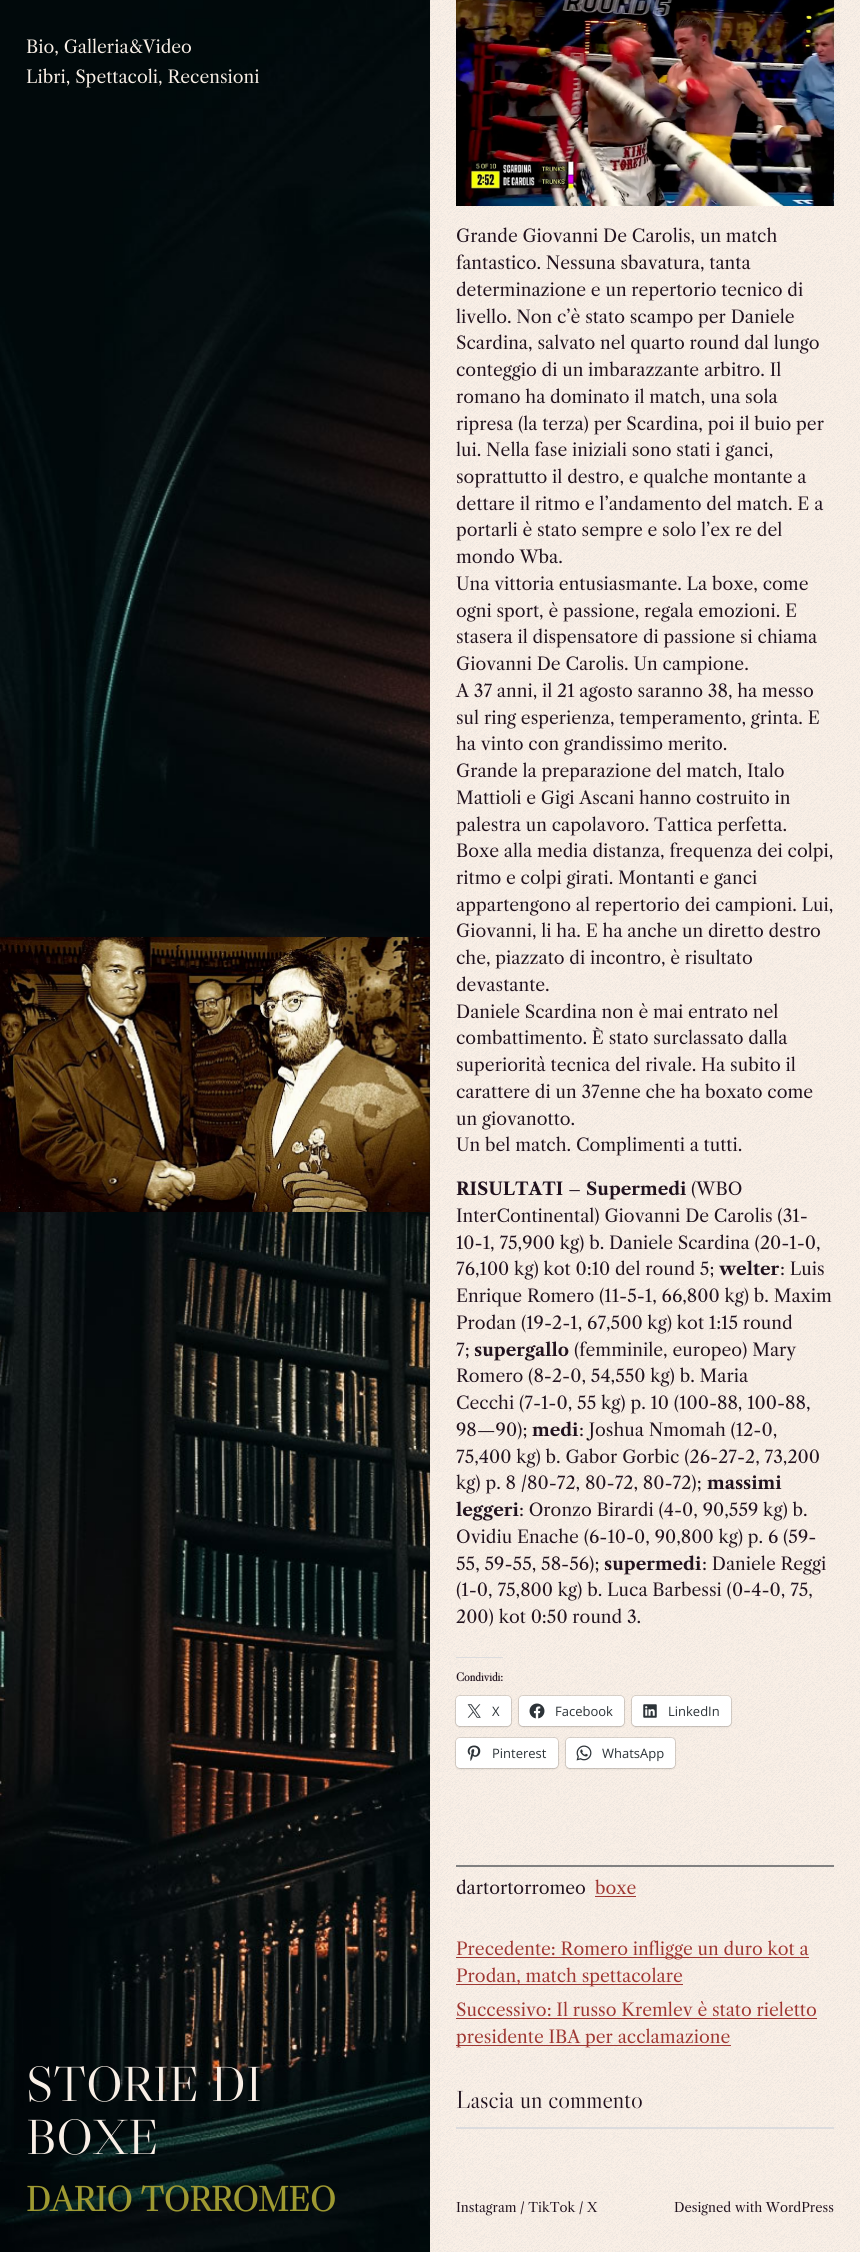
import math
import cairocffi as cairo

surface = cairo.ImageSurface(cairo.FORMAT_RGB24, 860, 2252)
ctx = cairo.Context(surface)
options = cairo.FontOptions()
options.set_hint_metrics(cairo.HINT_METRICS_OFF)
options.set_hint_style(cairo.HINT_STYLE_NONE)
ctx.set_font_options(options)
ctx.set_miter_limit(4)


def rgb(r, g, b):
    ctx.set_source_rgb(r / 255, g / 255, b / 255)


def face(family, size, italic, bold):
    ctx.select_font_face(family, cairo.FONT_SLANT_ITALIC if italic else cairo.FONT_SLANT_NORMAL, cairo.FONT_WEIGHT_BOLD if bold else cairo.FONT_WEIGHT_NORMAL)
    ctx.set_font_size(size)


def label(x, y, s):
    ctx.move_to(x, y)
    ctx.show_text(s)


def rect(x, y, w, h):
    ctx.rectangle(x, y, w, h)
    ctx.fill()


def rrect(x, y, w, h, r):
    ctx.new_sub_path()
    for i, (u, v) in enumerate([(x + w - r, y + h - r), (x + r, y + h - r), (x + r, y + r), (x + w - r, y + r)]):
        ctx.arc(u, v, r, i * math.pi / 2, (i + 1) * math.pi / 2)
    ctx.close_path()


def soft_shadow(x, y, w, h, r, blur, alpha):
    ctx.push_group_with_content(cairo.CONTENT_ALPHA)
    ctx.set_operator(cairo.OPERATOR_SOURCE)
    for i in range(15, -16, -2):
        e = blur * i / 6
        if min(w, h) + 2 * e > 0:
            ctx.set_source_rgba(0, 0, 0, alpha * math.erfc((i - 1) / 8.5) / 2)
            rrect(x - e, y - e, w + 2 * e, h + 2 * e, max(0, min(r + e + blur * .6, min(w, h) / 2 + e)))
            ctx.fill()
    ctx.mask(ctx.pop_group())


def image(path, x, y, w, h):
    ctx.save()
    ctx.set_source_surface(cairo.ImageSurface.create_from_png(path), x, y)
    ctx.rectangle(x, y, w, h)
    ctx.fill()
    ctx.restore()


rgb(249, 239, 230)
ctx.paint()
image('image0.png', 0, 0, 430, 2252)
face('Libre Caslon Text', 17.5, 0, 0)
rgb(249, 239, 230)
label(26, 53, 'Bio, Galleria&Video')
label(26, 83, 'Libri, Spettacoli, Recensioni')
image('image1.png', 0, 937, 430, 275)
face('Libre Caslon Display', 49.5, 0, 0)
label(26, 2101, 'STORIE DI')
label(26, 2154, 'BOXE')
face('Libre Caslon Display', 35, 0, 1)
rgb(158, 153, 49)
label(26, 2211, 'DARIO TORROMEO')
image('image2.png', 430, 0, 430, 2252)
image('image3.png', 456, 0, 378, 206)
face('Libre Caslon Text', 17.5, 0, 0)
rgb(33, 18, 30)
label(456, 242, 'Grande Giovanni De Carolis, un match')
label(456, 269, 'fantastico. Nessuna sbavatura, tanta')
label(456, 296, 'determinazione e un repertorio tecnico di')
label(456, 323, 'livello. Non c’è stato scampo per Daniele')
label(456, 349, 'Scardina, salvato nel quarto round dal lungo')
label(456, 376, 'conteggio di un imbarazzante arbitro. Il')
label(456, 403, 'romano ha dominato il match, una sola')
label(456, 430, 'ripresa (la terza) per Scardina, poi il buio per')
label(456, 456, 'lui. Nella fase iniziali sono stati i ganci,')
label(456, 483, 'soprattutto il destro, e qualche montante a')
label(456, 510, 'dettare il ritmo e l’andamento del match. E a')
label(456, 536, 'portarli è stato sempre e solo l’ex re del')
label(456, 563, 'mondo Wba.')
label(456, 590, 'Una vittoria entusiasmante. La boxe, come')
label(456, 617, 'ogni sport, è passione, regala emozioni. E')
label(456, 643, 'stasera il dispensatore di passione si chiama')
label(456, 670, 'Giovanni De Carolis. Un campione.')
label(456, 697, 'A 37 anni, il 21 agosto saranno 38, ha messo')
label(456, 724, 'sul ring esperienza, temperamento, grinta. E')
label(456, 750, 'ha vinto con grandissimo merito.')
label(456, 777, 'Grande la preparazione del match, Italo')
label(456, 804, 'Mattioli e Gigi Ascani hanno costruito in')
label(456, 831, 'palestra un capolavoro. Tattica perfetta.')
label(456, 857, 'Boxe alla media distanza, frequenza dei colpi,')
label(456, 884, 'ritmo e colpi girati. Montanti e ganci')
label(456, 911, 'appartengono al repertorio dei campioni. Lui,')
label(456, 937, 'Giovanni, li ha. E ha anche un diretto destro')
label(456, 964, 'che, piazzato di incontro, è risultato')
label(456, 991, 'devastante.')
label(456, 1018, 'Daniele Scardina non è mai entrato nel')
label(456, 1044, 'combattimento. È stato surclassato dalla')
label(456, 1071, 'superiorità tecnica del rivale. Ha subito il')
label(456, 1098, 'carattere di un 37enne che ha boxato come')
label(456, 1125, 'un giovanotto.')
label(456, 1151, 'Un bel match. Complimenti a tutti.')
face('Libre Caslon Text', 17.5, 0, 1)
label(456, 1195, 'RISULTATI')
face('Libre Caslon Text', 17.5, 0, 0)
label(568, 1195, '–')
face('Libre Caslon Text', 17.5, 0, 1)
label(586, 1195, 'Supermedi')
face('Libre Caslon Text', 17.5, 0, 0)
label(691, 1195, '(WBO')
label(456, 1222, 'InterContinental) Giovanni De Carolis (31-')
label(456, 1249, '10-1, 75,900 kg) b. Daniele Scardina (20-1-0,')
label(456, 1275, '76,100 kg) kot 0:10 del round 5;')
face('Libre Caslon Text', 17.5, 0, 1)
label(719, 1275, 'welter')
face('Libre Caslon Text', 17.5, 0, 0)
label(780, 1275, ': Luis')
label(456, 1302, 'Enrique Romero (11-5-1, 66,800 kg) b. Maxim')
label(456, 1329, 'Prodan (19-2-1, 67,500 kg) kot 1:15 round')
label(456, 1356, '7;')
face('Libre Caslon Text', 17.5, 0, 1)
label(474, 1356, 'supergallo')
face('Libre Caslon Text', 17.5, 0, 0)
label(574, 1356, '(femminile, europeo) Mary')
label(456, 1382, 'Romero (8-2-0, 54,550 kg) b. Maria')
label(456, 1409, 'Cecchi (7-1-0, 55 kg) p. 10 (100-88, 100-88,')
label(456, 1436, '98—90);')
face('Libre Caslon Text', 17.5, 0, 1)
label(532, 1436, 'medi')
face('Libre Caslon Text', 17.5, 0, 0)
label(579, 1436, ': Joshua Nmomah (12-0,')
label(456, 1463, '75,400 kg) b. Gabor Gorbic (26-27-2, 73,200')
label(456, 1489, 'kg) p. 8 /80-72, 80-72, 80-72);')
face('Libre Caslon Text', 17.5, 0, 1)
label(707, 1489, 'massimi')
label(456, 1516, 'leggeri')
face('Libre Caslon Text', 17.5, 0, 0)
label(519, 1516, ': Oronzo Birardi (4-0, 90,559 kg) b.')
label(456, 1543, 'Ovidiu Enache (6-10-0, 90,800 kg) p. 6 (59-')
label(456, 1570, '55, 59-55, 58-56);')
face('Libre Caslon Text', 17.5, 0, 1)
label(604, 1570, 'supermedi')
face('Libre Caslon Text', 17.5, 0, 0)
label(702, 1570, ': Daniele Reggi')
label(456, 1596, '(1-0, 75,800 kg) b. Luca Barbessi (0-4-0, 75,')
label(456, 1623, '200) kot 0:50 round 3.')
rgb(220, 220, 222)
rect(456, 1657, 47, 1)
face('Libre Caslon Display', 12, 0, 1)
rgb(33, 18, 30)
label(456, 1681, 'Condividi:')
rrect(455.5, 1695.5, 56, 31, 4.5)
ctx.set_source_rgba(0, 0, 0, 0.12)
ctx.set_line_width(1)
ctx.stroke()
rgb(0, 0, 0)
soft_shadow(456, 1697, 55, 30, 4, 1, 0.12)
rgb(255, 255, 255)
rrect(456, 1696, 55, 30, 4)
ctx.fill()
image('image4.png', 467, 1704, 14, 14)
face('Open Sans', 13, 0, 0)
rgb(44, 51, 56)
label(492, 1716, 'X')
rrect(518.5, 1695.5, 106, 31, 4.5)
ctx.set_source_rgba(0, 0, 0, 0.12)
ctx.stroke()
rgb(0, 0, 0)
soft_shadow(519, 1697, 105, 30, 4, 1, 0.12)
rgb(255, 255, 255)
rrect(519, 1696, 105, 30, 4)
ctx.fill()
image('image5.png', 529, 1703, 16, 16)
rgb(44, 51, 56)
label(555, 1716, 'Facebook')
rrect(631.5, 1695.5, 100, 31, 4.5)
ctx.set_source_rgba(0, 0, 0, 0.12)
ctx.stroke()
rgb(0, 0, 0)
soft_shadow(632, 1697, 99, 30, 4, 1, 0.12)
rgb(255, 255, 255)
rrect(632, 1696, 99, 30, 4)
ctx.fill()
image('image6.png', 643, 1704, 14, 14)
rgb(44, 51, 56)
label(668, 1716, 'LinkedIn')
rrect(455.5, 1737.5, 103, 31, 4.5)
ctx.set_source_rgba(0, 0, 0, 0.12)
ctx.stroke()
rgb(0, 0, 0)
soft_shadow(456, 1739, 102, 30, 4, 1, 0.12)
rgb(255, 255, 255)
rrect(456, 1738, 102, 30, 4)
ctx.fill()
image('image7.png', 467, 1745, 14, 16)
rgb(44, 51, 56)
label(492, 1758, 'Pinterest')
rrect(565.5, 1737.5, 110, 31, 4.5)
ctx.set_source_rgba(0, 0, 0, 0.12)
ctx.stroke()
rgb(0, 0, 0)
soft_shadow(566, 1739, 109, 30, 4, 1, 0.12)
rgb(255, 255, 255)
rrect(566, 1738, 109, 30, 4)
ctx.fill()
image('image8.png', 576, 1745, 16, 16)
rgb(44, 51, 56)
label(602, 1758, 'WhatsApp')
rgb(128, 128, 128)
rect(456, 1865, 378, 2)
face('Libre Caslon Text', 17.5, 0, 0)
rgb(33, 18, 30)
label(456, 1894, 'dartortorromeo')
rgb(159, 55, 50)
label(595, 1894, 'boxe')
rect(595, 1896, 41, 1)
rect(456, 1957, 353, 1)
label(456, 1955, 'Precedente: Romero infligge un duro kot a')
rect(456, 1984, 227, 1)
label(456, 1982, 'Prodan, match spettacolare')
label(456, 2016, 'Successivo: Il russo Kremlev è stato rieletto')
rect(456, 2018, 361, 1)
rect(456, 2045, 275, 1)
label(456, 2043, 'presidente IBA per acclamazione')
face('Libre Caslon Display', 24.75, 0, 0)
rgb(33, 18, 30)
label(456, 2108, 'Lascia un commento')
rgb(220, 220, 222)
rect(456, 2127, 378, 2)
face('Libre Caslon Text', 13, 0, 0)
rgb(33, 18, 30)
label(456, 2212, 'Instagram / TikTok / X')
label(674, 2212, 'Designed with WordPress')
surface.write_to_png('render.png')
